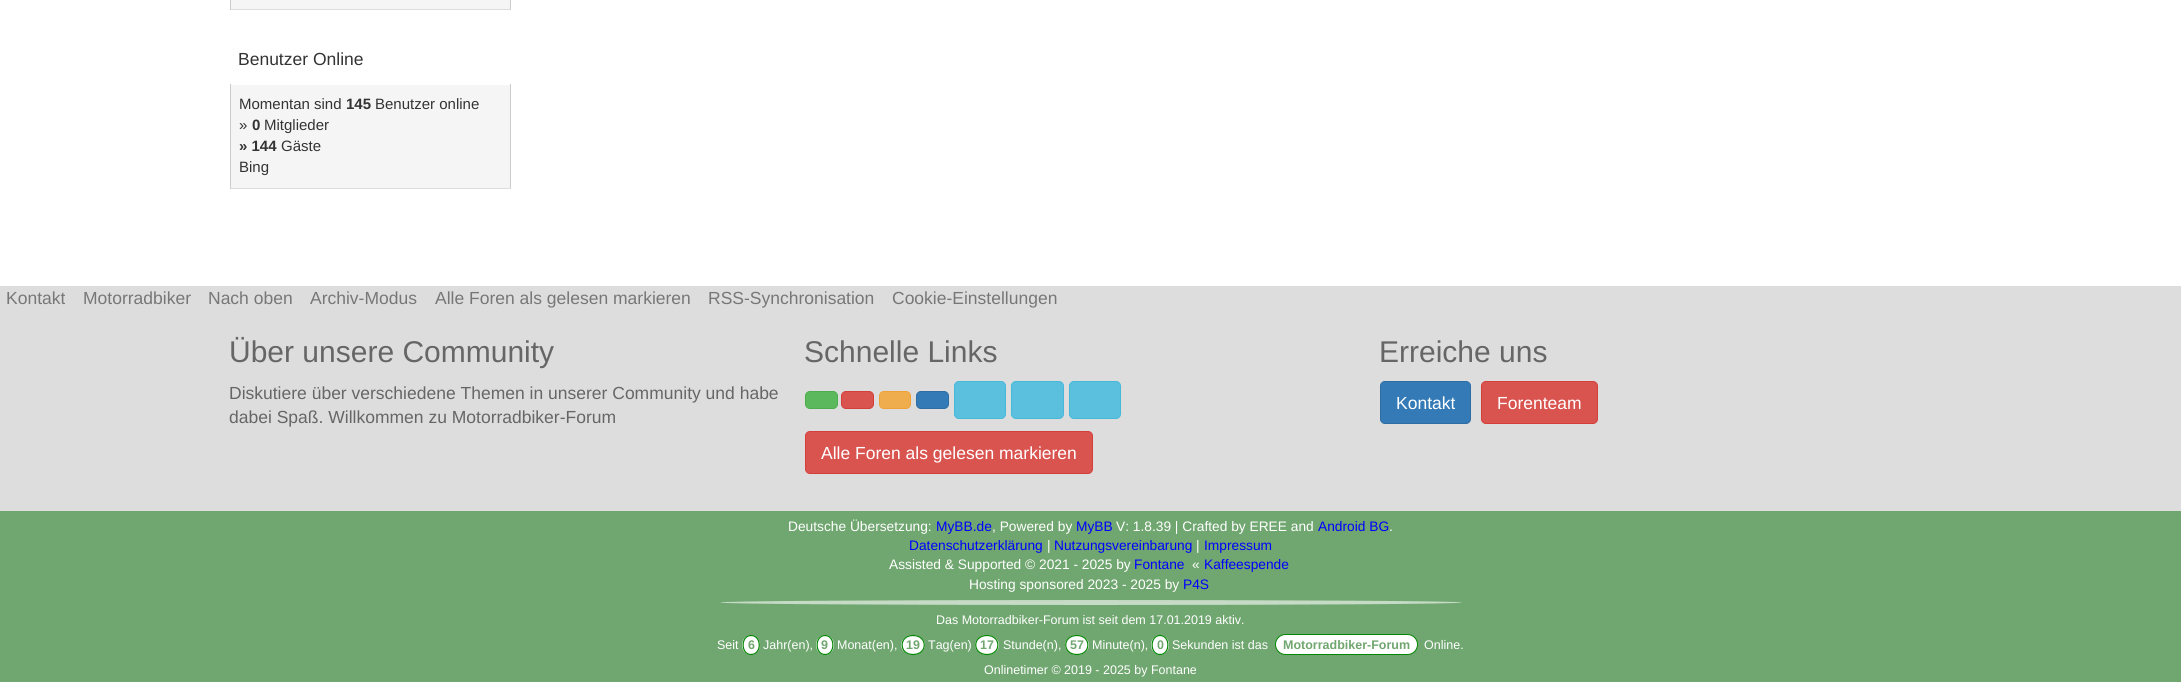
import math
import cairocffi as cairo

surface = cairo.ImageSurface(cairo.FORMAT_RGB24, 2181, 682)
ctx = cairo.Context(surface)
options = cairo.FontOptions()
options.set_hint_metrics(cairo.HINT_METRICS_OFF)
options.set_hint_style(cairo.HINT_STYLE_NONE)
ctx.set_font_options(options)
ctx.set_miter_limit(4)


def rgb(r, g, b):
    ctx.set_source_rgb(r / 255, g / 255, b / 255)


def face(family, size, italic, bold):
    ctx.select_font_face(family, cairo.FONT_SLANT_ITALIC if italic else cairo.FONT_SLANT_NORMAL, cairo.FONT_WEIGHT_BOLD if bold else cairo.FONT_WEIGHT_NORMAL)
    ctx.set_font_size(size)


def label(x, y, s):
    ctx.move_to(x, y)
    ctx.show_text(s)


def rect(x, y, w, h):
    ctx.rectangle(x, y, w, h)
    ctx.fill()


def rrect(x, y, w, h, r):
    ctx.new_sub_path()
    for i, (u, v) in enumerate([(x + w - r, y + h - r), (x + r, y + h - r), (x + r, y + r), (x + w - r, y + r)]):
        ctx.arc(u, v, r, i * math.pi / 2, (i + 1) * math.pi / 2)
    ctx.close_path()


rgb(255, 255, 255)
ctx.paint()
rgb(245, 245, 245)
rect(231, 0, 279, 9)
rgb(204, 204, 204)
rect(510, 0, 1, 10)
rgb(221, 221, 221)
rect(230, 9, 281, 1)
rgb(204, 204, 204)
rect(230, 0, 1, 10)
face('Liberation Sans', 17.5, 0, 0)
rgb(51, 51, 51)
label(238, 65, 'Benutzer Online')
rgb(245, 245, 245)
rect(231, 85, 279, 103)
rgb(204, 204, 204)
rect(510, 84, 1, 105)
rgb(221, 221, 221)
rect(230, 188, 281, 1)
rgb(204, 204, 204)
rect(230, 84, 1, 105)
face('Liberation Sans', 15, 0, 0)
rgb(51, 51, 51)
label(239, 109, 'Momentan sind')
face('Liberation Sans', 15, 0, 1)
label(346, 109, '145')
face('Liberation Sans', 15, 0, 0)
label(375, 109, 'Benutzer online')
label(239, 130, '»')
face('Liberation Sans', 15, 0, 1)
label(252, 130, '0')
face('Liberation Sans', 15, 0, 0)
label(264, 130, 'Mitglieder')
face('Liberation Sans', 15, 0, 1)
label(239, 151, '» 144')
face('Liberation Sans', 15, 0, 0)
label(281, 151, 'Gäste')
label(239, 172, 'Bing')
rgb(221, 221, 221)
rect(0, 286, 2181, 225)
face('Liberation Sans', 17.5, 0, 0)
rgb(119, 119, 119)
label(6, 304, 'Kontakt')
label(83, 304, 'Motorradbiker')
label(208, 304, 'Nach oben')
label(310, 304, 'Archiv-Modus')
label(435, 304, 'Alle Foren als gelesen markieren')
label(708, 304, 'RSS-Synchronisation')
label(892, 304, 'Cookie-Einstellungen')
face('Liberation Sans', 30, 0, 0)
rgb(102, 102, 102)
label(229, 362, 'Über unsere Community')
face('Liberation Sans', 17.5, 0, 0)
label(229, 399, 'Diskutiere über verschiedene Themen in unserer Community und habe')
label(229, 423, 'dabei Spaß. Willkommen zu Motorradbiker-Forum')
face('Liberation Sans', 30, 0, 0)
label(804, 362, 'Schnelle Links')
rgb(92, 184, 92)
rrect(805.5, 391.5, 32, 17, 4.5)
ctx.fill_preserve()
rgb(76, 174, 76)
ctx.set_line_width(1)
ctx.stroke()
rgb(217, 83, 79)
rrect(841.5, 391.5, 32, 17, 4.5)
ctx.fill_preserve()
rgb(212, 63, 58)
ctx.stroke()
rgb(240, 173, 78)
rrect(879.5, 391.5, 31, 17, 4.5)
ctx.fill_preserve()
rgb(238, 162, 54)
ctx.stroke()
rgb(51, 122, 183)
rrect(916.5, 391.5, 32, 17, 4.5)
ctx.fill_preserve()
rgb(46, 109, 164)
ctx.stroke()
rgb(91, 192, 222)
rrect(954.5, 381.5, 51, 37, 4.5)
ctx.fill_preserve()
rgb(70, 184, 218)
ctx.stroke()
rgb(91, 192, 222)
rrect(1011.5, 381.5, 52, 37, 4.5)
ctx.fill_preserve()
rgb(70, 184, 218)
ctx.stroke()
rgb(91, 192, 222)
rrect(1069.5, 381.5, 51, 37, 4.5)
ctx.fill_preserve()
rgb(70, 184, 218)
ctx.stroke()
rgb(217, 83, 79)
rrect(805.5, 431.5, 287, 42, 4.5)
ctx.fill_preserve()
rgb(212, 63, 58)
ctx.stroke()
face('Liberation Sans', 17.5, 0, 0)
rgb(255, 255, 255)
label(821, 459, 'Alle Foren als gelesen markieren')
face('Liberation Sans', 30, 0, 0)
rgb(102, 102, 102)
label(1379, 362, 'Erreiche uns')
rgb(51, 122, 183)
rrect(1380.5, 381.5, 90, 42, 4.5)
ctx.fill_preserve()
rgb(46, 109, 164)
ctx.stroke()
face('Liberation Sans', 17.5, 0, 0)
rgb(255, 255, 255)
label(1396, 409, 'Kontakt')
rgb(217, 83, 79)
rrect(1481.5, 381.5, 116, 42, 4.5)
ctx.fill_preserve()
rgb(212, 63, 58)
ctx.stroke()
rgb(255, 255, 255)
label(1497, 409, 'Forenteam')
rgb(112, 166, 112)
rect(0, 511, 2181, 171)
face('Liberation Sans', 13.75, 0, 0)
rgb(255, 255, 255)
label(788, 531, 'Deutsche Übersetzung:')
rgb(0, 0, 255)
label(936, 531, 'MyBB.de')
rgb(255, 255, 255)
label(992, 531, ', Powered by')
rgb(0, 0, 255)
label(1076, 531, 'MyBB')
rgb(255, 255, 255)
label(1116, 531, 'V: 1.8.39 | Crafted by EREE and')
rgb(0, 0, 255)
label(1318, 531, 'Android BG')
rgb(255, 255, 255)
label(1389, 531, '.')
rgb(0, 0, 255)
label(909, 550, 'Datenschutzerklärung')
rgb(255, 255, 255)
label(1047, 550, '|')
rgb(0, 0, 255)
label(1054, 550, 'Nutzungsvereinbarung')
rgb(255, 255, 255)
label(1196, 550, '|')
rgb(0, 0, 255)
label(1204, 550, 'Impressum')
rgb(255, 255, 255)
label(889, 569, 'Assisted & Supported © 2021 - 2025 by')
rgb(0, 0, 255)
label(1134, 569, 'Fontane')
rgb(255, 255, 255)
label(1192, 569, '«')
rgb(0, 0, 255)
label(1204, 569, 'Kaffeespende')
rgb(255, 255, 255)
label(969, 589, 'Hosting sponsored 2023 - 2025 by')
rgb(0, 0, 255)
label(1183, 589, 'P4S')
rgb(198, 219, 198)
ctx.new_path()
ctx.move_to(1091, 600)
ctx.curve_to(1296, 600, 1462, 601, 1462, 602.5)
ctx.curve_to(1462, 604, 1296, 605, 1091, 605)
ctx.curve_to(886, 605, 720, 604, 720, 602.5)
ctx.curve_to(720, 601, 886, 600, 1091, 600)
ctx.close_path()
ctx.fill()
face('Liberation Sans', 12.5, 0, 0)
rgb(255, 255, 255)
label(936, 624, 'Das Motorradbiker-Forum ist seit dem 17.01.2019 aktiv.')
label(717, 649, 'Seit')
ctx.new_path()
ctx.move_to(751, 635)
ctx.curve_to(756, 635, 760, 639.5, 760, 645)
ctx.curve_to(760, 650.5, 756, 655, 751, 655)
ctx.curve_to(746, 655, 742, 650.5, 742, 645)
ctx.curve_to(742, 639.5, 746, 635, 751, 635)
ctx.close_path()
ctx.fill()
ctx.new_path()
ctx.move_to(751, 635.5)
ctx.curve_to(762, 635.5, 762, 654.5, 751, 654.5)
ctx.curve_to(740.5, 654.5, 740.5, 635.5, 751, 635.5)
ctx.close_path()
rgb(0, 134, 0)
ctx.set_line_width(1.2)
ctx.stroke()
face('Liberation Sans', 12.5, 0, 1)
rgb(112, 166, 112)
label(748, 649, '6')
face('Liberation Sans', 12.5, 0, 0)
rgb(255, 255, 255)
label(763, 649, 'Jahr(en),')
ctx.new_path()
ctx.move_to(825, 635)
ctx.curve_to(830, 635, 834, 639.5, 834, 645)
ctx.curve_to(834, 650.5, 830, 655, 825, 655)
ctx.curve_to(820, 655, 816, 650.5, 816, 645)
ctx.curve_to(816, 639.5, 820, 635, 825, 635)
ctx.close_path()
ctx.fill()
ctx.new_path()
ctx.move_to(825, 635.5)
ctx.curve_to(835.5, 635.5, 835.5, 654.5, 825, 654.5)
ctx.curve_to(814.5, 654.5, 814.5, 635.5, 825, 635.5)
ctx.close_path()
rgb(0, 134, 0)
ctx.stroke()
face('Liberation Sans', 12.5, 0, 1)
rgb(112, 166, 112)
label(821, 649, '9')
face('Liberation Sans', 12.5, 0, 0)
rgb(255, 255, 255)
label(837, 649, 'Monat(en),')
ctx.new_path()
ctx.move_to(913, 635)
ctx.curve_to(919.5, 635, 925, 639.5, 925, 645)
ctx.curve_to(925, 650.5, 919.5, 655, 913, 655)
ctx.curve_to(906.5, 655, 901, 650.5, 901, 645)
ctx.curve_to(901, 639.5, 906.5, 635, 913, 635)
ctx.close_path()
ctx.fill()
ctx.new_path()
ctx.move_to(913, 635.5)
ctx.curve_to(928, 635.5, 928, 654.5, 913, 654.5)
ctx.curve_to(898.5, 654.5, 898.5, 635.5, 913, 635.5)
ctx.close_path()
rgb(0, 134, 0)
ctx.stroke()
face('Liberation Sans', 12.5, 0, 1)
rgb(112, 166, 112)
label(906, 649, '19')
face('Liberation Sans', 12.5, 0, 0)
rgb(255, 255, 255)
label(928, 649, 'Tag(en)')
ctx.new_path()
ctx.move_to(987, 635)
ctx.curve_to(993.5, 635, 999, 639.5, 999, 645)
ctx.curve_to(999, 650.5, 993.5, 655, 987, 655)
ctx.curve_to(980.5, 655, 975, 650.5, 975, 645)
ctx.curve_to(975, 639.5, 980.5, 635, 987, 635)
ctx.close_path()
ctx.fill()
ctx.new_path()
ctx.move_to(987, 635.5)
ctx.curve_to(1001.5, 635.5, 1001.5, 654.5, 987, 654.5)
ctx.curve_to(972, 654.5, 972, 635.5, 987, 635.5)
ctx.close_path()
rgb(0, 134, 0)
ctx.stroke()
face('Liberation Sans', 12.5, 0, 1)
rgb(112, 166, 112)
label(980, 649, '17')
face('Liberation Sans', 12.5, 0, 0)
rgb(255, 255, 255)
label(1003, 649, 'Stunde(n),')
ctx.new_path()
ctx.move_to(1077, 635)
ctx.curve_to(1083.5, 635, 1089, 639.5, 1089, 645)
ctx.curve_to(1089, 650.5, 1083.5, 655, 1077, 655)
ctx.curve_to(1070.5, 655, 1065, 650.5, 1065, 645)
ctx.curve_to(1065, 639.5, 1070.5, 635, 1077, 635)
ctx.close_path()
ctx.fill()
ctx.new_path()
ctx.move_to(1077, 635.5)
ctx.curve_to(1091.5, 635.5, 1091.5, 654.5, 1077, 654.5)
ctx.curve_to(1062, 654.5, 1062, 635.5, 1077, 635.5)
ctx.close_path()
rgb(0, 134, 0)
ctx.stroke()
face('Liberation Sans', 12.5, 0, 1)
rgb(112, 166, 112)
label(1070, 649, '57')
face('Liberation Sans', 12.5, 0, 0)
rgb(255, 255, 255)
label(1092, 649, 'Minute(n),')
ctx.new_path()
ctx.move_to(1160, 635)
ctx.curve_to(1165, 635, 1169, 639.5, 1169, 645)
ctx.curve_to(1169, 650.5, 1165, 655, 1160, 655)
ctx.curve_to(1155, 655, 1151, 650.5, 1151, 645)
ctx.curve_to(1151, 639.5, 1155, 635, 1160, 635)
ctx.close_path()
ctx.fill()
ctx.new_path()
ctx.move_to(1160, 635.5)
ctx.curve_to(1170.5, 635.5, 1170.5, 654.5, 1160, 654.5)
ctx.curve_to(1149.5, 654.5, 1149.5, 635.5, 1160, 635.5)
ctx.close_path()
rgb(0, 134, 0)
ctx.stroke()
face('Liberation Sans', 12.5, 0, 1)
rgb(112, 166, 112)
label(1157, 649, '0')
face('Liberation Sans', 12.5, 0, 0)
rgb(255, 255, 255)
label(1172, 649, 'Sekunden ist das')
rrect(1275.5, 634.5, 142, 20, 10)
ctx.fill_preserve()
rgb(0, 134, 0)
ctx.set_line_width(1)
ctx.stroke()
face('Liberation Sans', 12.5, 0, 1)
rgb(112, 166, 112)
label(1283, 649, 'Motorradbiker-Forum')
face('Liberation Sans', 12.5, 0, 0)
rgb(255, 255, 255)
label(1424, 649, 'Online.')
label(984, 674, 'Onlinetimer © 2019 - 2025 by Fontane')
surface.write_to_png('render.png')
